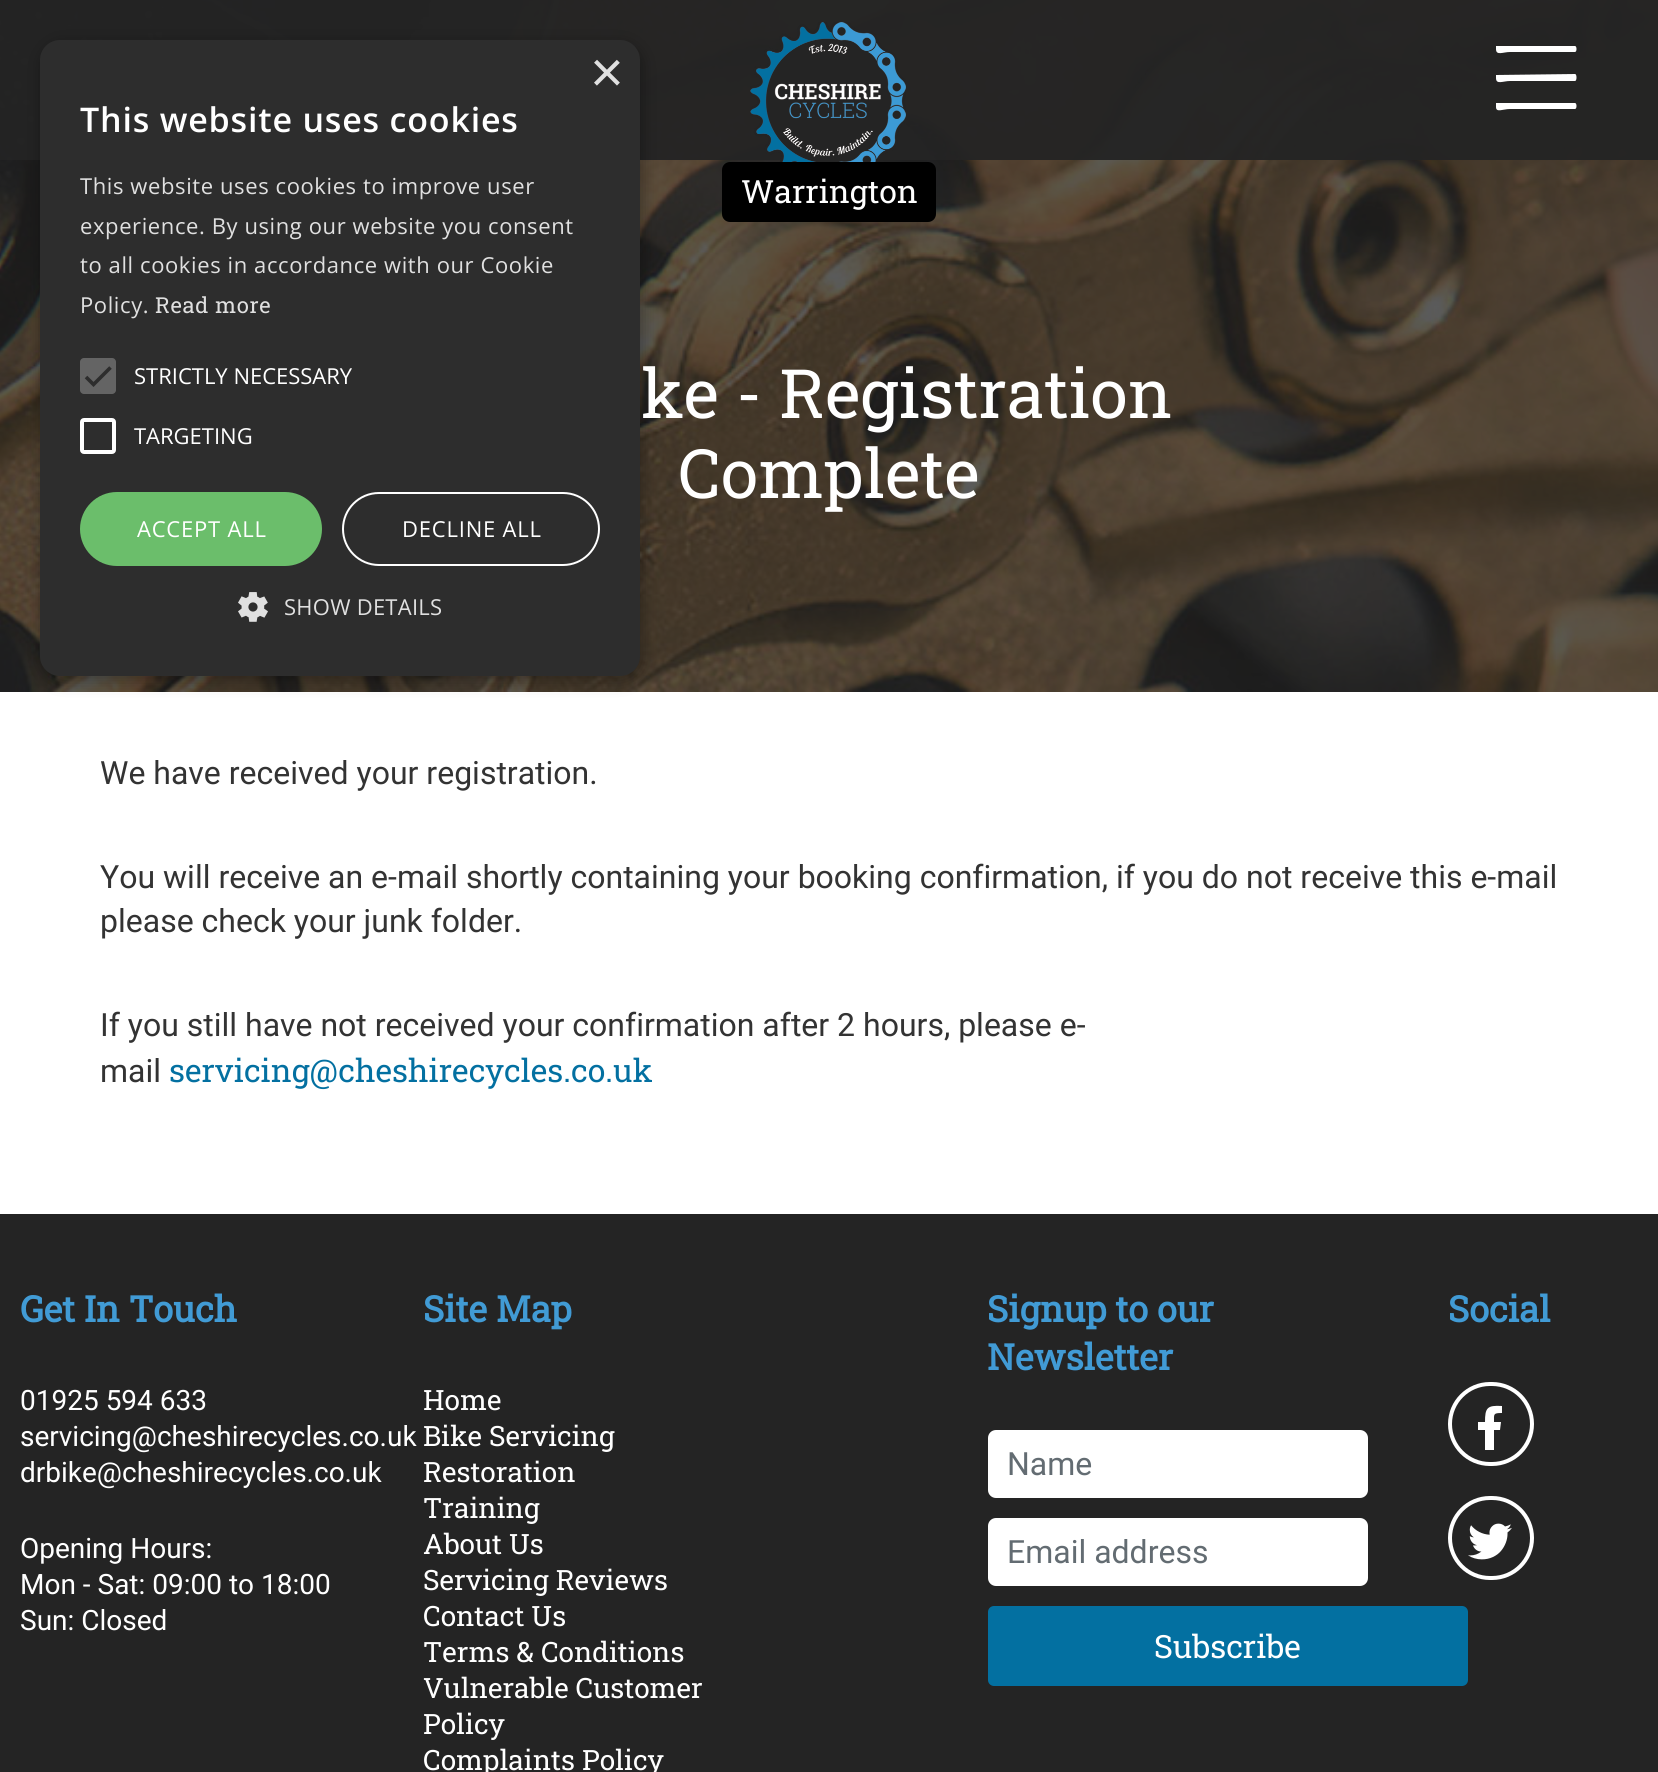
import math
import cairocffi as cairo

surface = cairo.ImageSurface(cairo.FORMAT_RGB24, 1658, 1772)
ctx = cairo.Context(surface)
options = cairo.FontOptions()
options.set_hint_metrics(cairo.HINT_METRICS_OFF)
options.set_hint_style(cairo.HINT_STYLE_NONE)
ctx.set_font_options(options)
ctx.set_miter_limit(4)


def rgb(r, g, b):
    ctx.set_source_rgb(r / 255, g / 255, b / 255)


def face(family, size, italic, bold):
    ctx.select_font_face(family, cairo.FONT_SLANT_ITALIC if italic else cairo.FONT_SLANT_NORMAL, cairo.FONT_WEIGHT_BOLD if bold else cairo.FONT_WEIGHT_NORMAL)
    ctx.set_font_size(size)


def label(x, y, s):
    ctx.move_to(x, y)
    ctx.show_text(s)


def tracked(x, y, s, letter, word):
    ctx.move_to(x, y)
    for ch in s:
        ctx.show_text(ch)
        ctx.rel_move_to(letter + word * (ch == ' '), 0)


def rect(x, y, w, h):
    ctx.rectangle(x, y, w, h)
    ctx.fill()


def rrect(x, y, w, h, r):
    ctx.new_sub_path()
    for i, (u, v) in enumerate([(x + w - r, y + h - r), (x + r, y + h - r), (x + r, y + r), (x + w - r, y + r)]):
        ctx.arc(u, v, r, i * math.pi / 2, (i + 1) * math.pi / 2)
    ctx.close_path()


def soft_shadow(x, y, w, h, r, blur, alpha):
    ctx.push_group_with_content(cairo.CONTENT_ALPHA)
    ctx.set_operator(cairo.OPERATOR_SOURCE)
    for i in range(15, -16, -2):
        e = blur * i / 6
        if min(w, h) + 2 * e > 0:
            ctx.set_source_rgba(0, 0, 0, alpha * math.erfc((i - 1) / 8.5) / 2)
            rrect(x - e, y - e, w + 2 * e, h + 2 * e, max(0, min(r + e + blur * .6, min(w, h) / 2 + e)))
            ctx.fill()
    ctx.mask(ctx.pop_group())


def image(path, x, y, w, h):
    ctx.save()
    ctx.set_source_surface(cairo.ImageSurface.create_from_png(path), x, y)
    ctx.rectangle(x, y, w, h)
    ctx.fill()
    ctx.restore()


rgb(36, 36, 36)
ctx.paint()
image('image2.png', 0, 0, 1658, 692)
ctx.set_source_rgba(0.141, 0.141, 0.141, 0.95)
rect(0, 0, 1658, 160)
rgb(255, 255, 255)
rect(0, 692, 1658, 522)
rgb(0, 0, 0)
soft_shadow(42, 44, 600, 636, 20, 8, 0.35)
rgb(45, 45, 45)
rrect(40, 40, 600, 636, 20)
ctx.fill()
face('Liberation Sans', 58, 0, 0)
rgb(224, 224, 224)
label(590, 92, '×')
face('Open Sans SemiBold', 34, 0, 0)
rgb(255, 255, 255)
tracked(80, 132, 'This website uses cookies', 0.8, 0)
face('Open Sans', 22, 0, 0)
rgb(224, 224, 224)
tracked(80, 194, 'This website uses cookies to improve user', 0.6, 0)
tracked(80, 234, 'experience. By using our website you consent', 0.6, 0)
tracked(80, 273, 'to all cookies in accordance with our Cookie', 0.6, 0)
tracked(80, 313, 'Policy.', 0.6, 0)
face('Roboto Slab', 22, 0, 0)
tracked(155, 313, 'Read more', 0.6, 0)
rgb(100, 100, 100)
rrect(80, 358, 36, 36, 4)
ctx.fill()
ctx.new_path()
ctx.move_to(86, 377)
ctx.line_to(93.5, 384.5)
ctx.line_to(110.5, 367.5)
rgb(45, 45, 45)
ctx.set_line_width(3.6)
ctx.stroke()
face('Open Sans', 22, 0, 0)
rgb(255, 255, 255)
label(134, 384, 'STRICTLY NECESSARY')
rrect(82, 420, 32, 32, 2)
ctx.set_line_width(4)
ctx.stroke()
label(134, 444, 'TARGETING')
rgb(107, 190, 107)
rrect(80, 492, 242, 74, 37)
ctx.fill()
rgb(255, 255, 255)
tracked(137, 537, 'ACCEPT ALL', 0.8, 0)
rrect(343, 493, 256, 72, 36)
ctx.set_line_width(2)
ctx.stroke()
tracked(402, 537, 'DECLINE ALL', 0.8, 0)
image('image0.png', 238, 592, 30, 30)
rgb(224, 224, 224)
tracked(284, 615, 'SHOW DETAILS', 0.25, 0)
rgb(255, 255, 255)
ctx.new_path()
ctx.move_to(1575, 52)
ctx.line_to(1510, 52)
ctx.curve_to(1503, 52, 1496, 56, 1496, 49)
ctx.line_to(1496, 46)
ctx.line_to(1575, 46)
ctx.curve_to(1577, 46, 1577, 52, 1575, 52)
ctx.close_path()
ctx.move_to(1575, 81)
ctx.line_to(1510, 81)
ctx.curve_to(1503, 81, 1496, 85, 1496, 78)
ctx.line_to(1496, 75)
ctx.line_to(1575, 74)
ctx.curve_to(1577, 74, 1577, 81, 1575, 81)
ctx.close_path()
ctx.move_to(1575, 109)
ctx.line_to(1510, 109)
ctx.curve_to(1503, 109, 1496, 113, 1496, 107)
ctx.line_to(1496, 103)
ctx.line_to(1575, 103)
ctx.curve_to(1577, 103, 1577, 109, 1575, 109)
ctx.close_path()
ctx.fill()
image('image1.png', 750, 22, 156, 140)
rgb(0, 0, 0)
rrect(722, 162, 214, 60, 8)
ctx.fill()
face('Roboto Slab', 32, 0, 0)
rgb(255, 255, 255)
label(741, 203, 'Warrington')
face('Roboto Slab', 68, 0, 0)
label(641, 418, 'ke - Registration')
label(678, 498, 'Complete')
face('Roboto', 32, 0, 0)
rgb(51, 51, 51)
label(100, 784, 'We have received your registration.')
label(100, 888, 'You will receive an e-mail shortly containing your booking confirmation, if you do not receive this e-mail')
label(100, 932, 'please check your junk folder.')
label(100, 1036, 'If you still have not received your confirmation after 2 hours, please e-')
label(100, 1082, 'mail')
face('Roboto Slab', 32, 0, 0)
rgb(3, 112, 161)
label(169, 1082, 'servicing@cheshirecycles.co.uk')
face('Roboto Slab', 36, 0, 1)
rgb(65, 155, 213)
label(20, 1322, 'Get In Touch')
face('Roboto', 28, 0, 0)
rgb(255, 255, 255)
label(20, 1410, '01925 594 633')
label(20, 1446, 'servicing@cheshirecycles.co.uk')
label(20, 1482, 'drbike@cheshirecycles.co.uk')
label(20, 1558, 'Opening Hours:')
label(20, 1594, 'Mon - Sat: 09:00 to 18:00')
label(20, 1630, 'Sun: Closed')
face('Roboto Slab', 36, 0, 1)
rgb(65, 155, 213)
label(423, 1322, 'Site Map')
face('Roboto Slab', 28, 0, 0)
rgb(255, 255, 255)
label(423, 1410, 'Home')
label(423, 1446, 'Bike Servicing')
label(423, 1482, 'Restoration')
label(423, 1518, 'Training')
label(423, 1554, 'About Us')
label(423, 1590, 'Servicing Reviews')
label(423, 1626, 'Contact Us')
label(423, 1662, 'Terms & Conditions')
label(423, 1698, 'Vulnerable Customer')
label(423, 1734, 'Policy')
label(423, 1770, 'Complaints Policy')
face('Roboto Slab', 36, 0, 1)
rgb(65, 155, 213)
label(987, 1322, 'Signup to our')
label(987, 1370, 'Newsletter')
rgb(255, 255, 255)
rrect(988, 1430, 380, 68, 8)
ctx.fill()
face('Roboto', 32, 0, 0)
rgb(99, 108, 114)
label(1007, 1475, 'Name')
rgb(255, 255, 255)
rrect(988, 1518, 380, 68, 8)
ctx.fill()
rgb(99, 108, 114)
label(1007, 1563, 'Email address')
rgb(3, 112, 161)
rrect(988, 1606, 480, 80, 6)
ctx.fill()
face('Roboto Slab', 32, 0, 0)
rgb(255, 255, 255)
label(1154, 1658, 'Subscribe')
face('Roboto Slab', 36, 0, 1)
rgb(65, 155, 213)
label(1448, 1322, 'Social')
rrect(1450, 1384, 82, 80, 40)
rgb(255, 255, 255)
ctx.set_line_width(4)
ctx.stroke()
ctx.new_path()
ctx.move_to(1500, 1430)
ctx.line_to(1494, 1430)
ctx.line_to(1494, 1450)
ctx.line_to(1485, 1450)
ctx.line_to(1485, 1430)
ctx.line_to(1478, 1430)
ctx.line_to(1478, 1422)
ctx.line_to(1485, 1422)
ctx.curve_to(1485, 1408, 1487, 1405, 1502, 1406)
ctx.line_to(1502, 1413)
ctx.curve_to(1493, 1413, 1494, 1414, 1494, 1422)
ctx.line_to(1501, 1422)
ctx.close_path()
ctx.fill()
rrect(1450, 1498, 82, 80, 40)
ctx.stroke()
image('image3.png', 1468, 1523, 44, 37)
surface.write_to_png('render.png')
